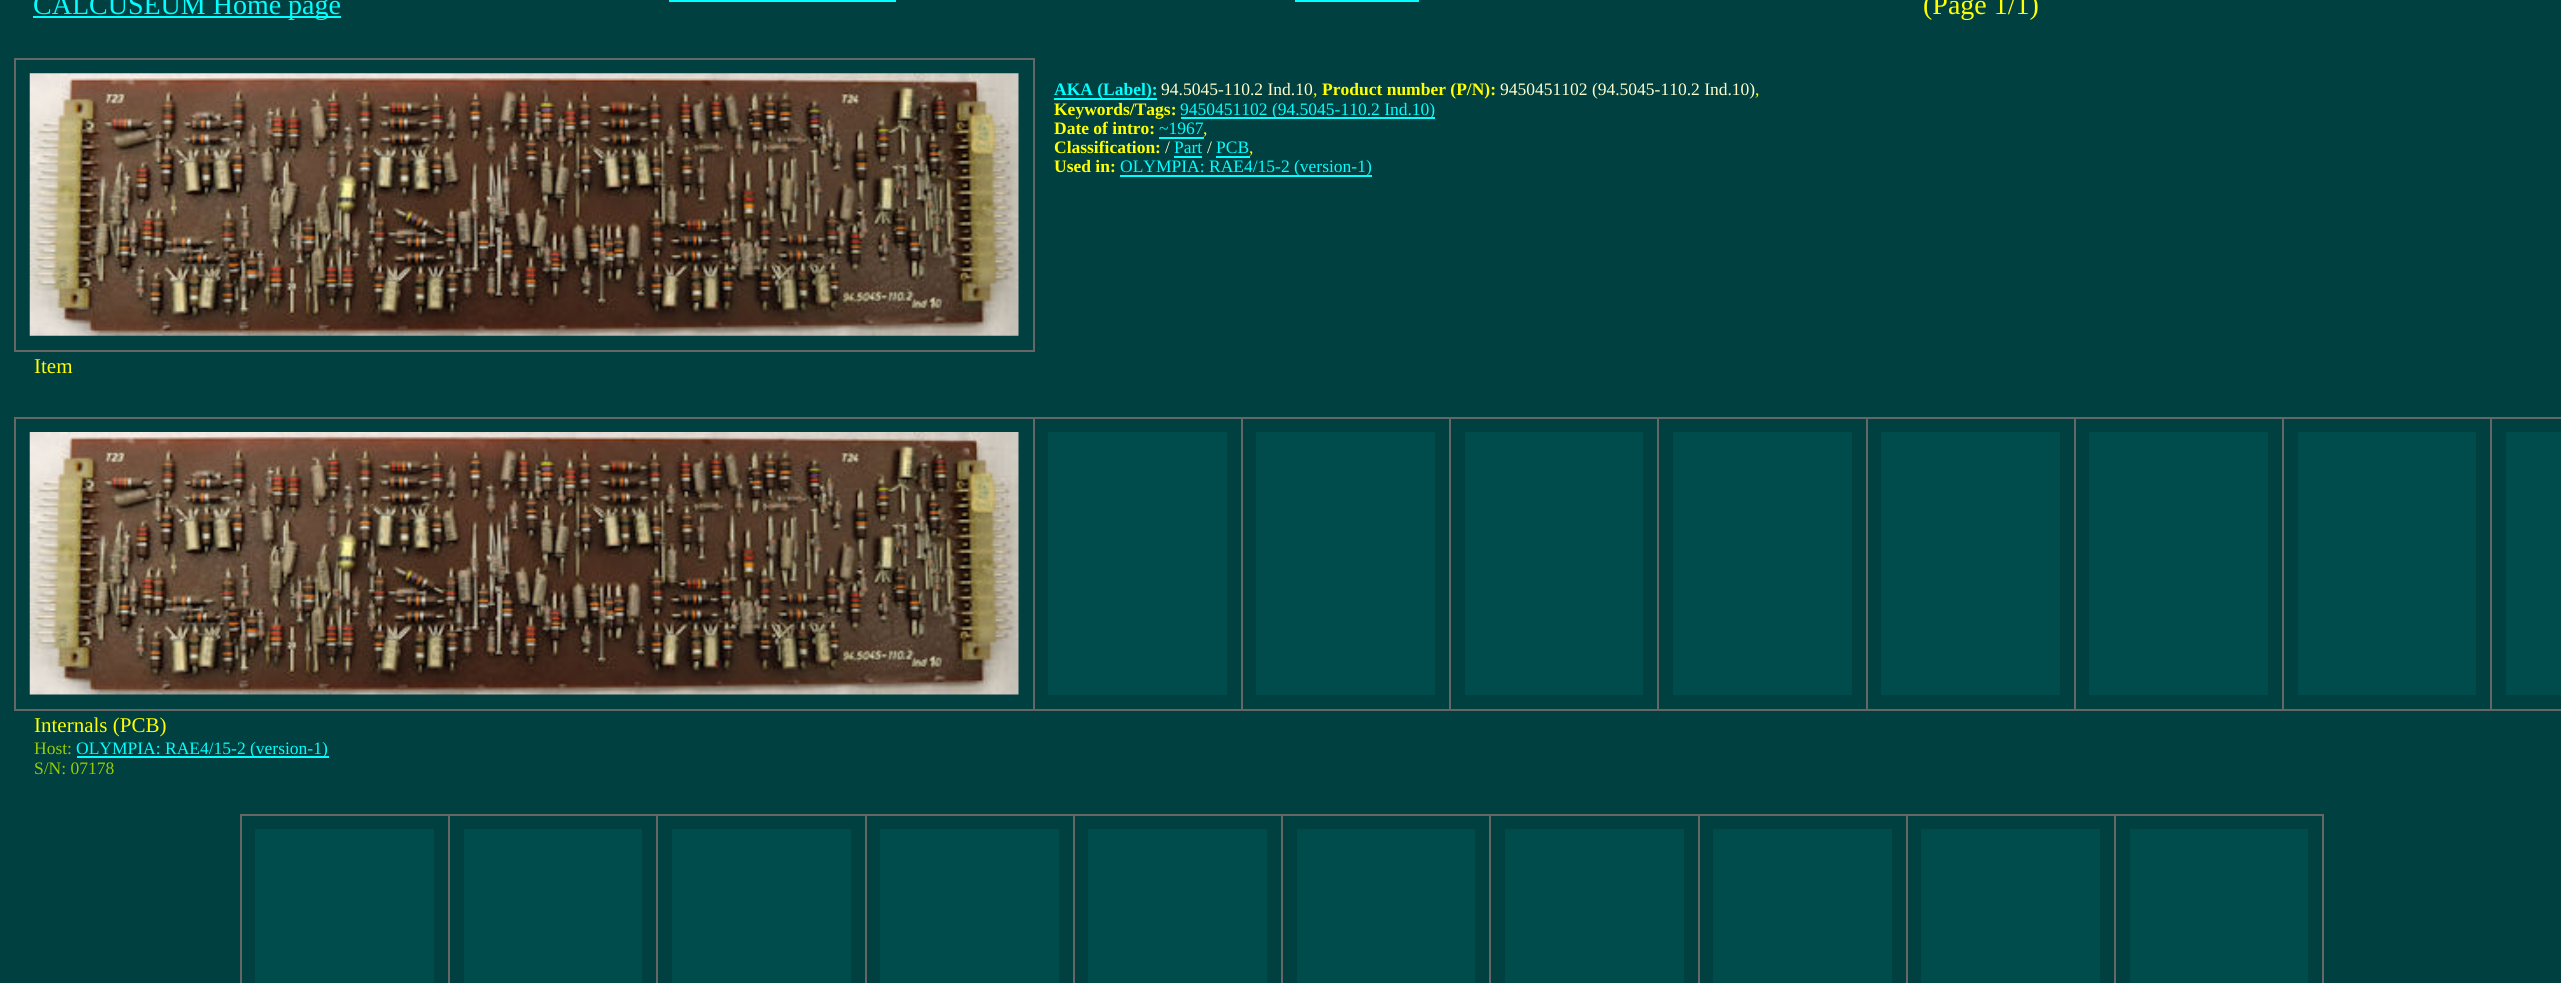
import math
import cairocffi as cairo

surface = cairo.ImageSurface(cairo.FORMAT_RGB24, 2561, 983)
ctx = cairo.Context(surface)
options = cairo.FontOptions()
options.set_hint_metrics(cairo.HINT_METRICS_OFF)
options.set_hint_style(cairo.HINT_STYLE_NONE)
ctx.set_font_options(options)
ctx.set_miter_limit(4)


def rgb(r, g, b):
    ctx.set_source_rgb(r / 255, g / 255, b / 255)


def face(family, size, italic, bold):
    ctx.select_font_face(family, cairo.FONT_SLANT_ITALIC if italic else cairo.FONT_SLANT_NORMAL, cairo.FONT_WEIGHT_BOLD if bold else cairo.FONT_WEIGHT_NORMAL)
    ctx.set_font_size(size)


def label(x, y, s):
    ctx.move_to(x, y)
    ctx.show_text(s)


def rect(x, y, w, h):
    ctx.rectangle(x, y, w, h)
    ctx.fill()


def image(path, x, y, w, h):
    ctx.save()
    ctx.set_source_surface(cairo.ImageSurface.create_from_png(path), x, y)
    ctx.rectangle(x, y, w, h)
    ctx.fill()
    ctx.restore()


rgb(0, 64, 64)
ctx.paint()
rgb(0, 255, 255)
rect(33, 16, 308, 2)
face('Liberation Serif', 28, 0, 0)
label(33, 14, 'CALCUSEUM Home page')
rect(669, 0, 227, 2)
rect(1295, 0, 124, 2)
rgb(255, 255, 0)
label(1923, 14, '(Page 1/1)')
rgb(102, 102, 102)
rect(14, 58, 1020, 2)
rect(1033, 58, 2, 294)
rect(14, 350, 1020, 2)
rect(14, 58, 2, 294)
image('image0.png', 29, 73, 990, 263)
rgb(0, 255, 255)
rect(1054, 98, 103, 2)
face('Liberation Serif', 17.5, 0, 1)
label(1054, 95, 'AKA (Label):')
face('Liberation Serif', 17.5, 0, 0)
rgb(255, 255, 204)
label(1161, 95, '94.5045-110.2 Ind.10')
rgb(255, 255, 0)
label(1313, 95, ',')
face('Liberation Serif', 17.5, 0, 1)
label(1322, 95, 'Product number (P/N):')
face('Liberation Serif', 17.5, 0, 0)
rgb(255, 255, 204)
label(1500, 95, '9450451102 (94.5045-110.2 Ind.10)')
rgb(255, 255, 0)
label(1755, 95, ',')
face('Liberation Serif', 17.5, 0, 1)
label(1054, 115, 'Keywords/Tags:')
rgb(0, 255, 255)
rect(1181, 117, 254, 2)
face('Liberation Serif', 17.5, 0, 0)
label(1180, 115, '9450451102 (94.5045-110.2 Ind.10)')
face('Liberation Serif', 17.5, 0, 1)
rgb(255, 255, 0)
label(1054, 134, 'Date of intro:')
face('Liberation Serif', 17.5, 0, 0)
rgb(0, 255, 255)
label(1159, 134, '~1967')
rgb(255, 255, 0)
label(1203, 134, ',')
rgb(0, 255, 255)
rect(1159, 137, 45, 2)
face('Liberation Serif', 17.5, 0, 1)
rgb(255, 255, 0)
label(1054, 153, 'Classification:')
face('Liberation Serif', 17.5, 0, 0)
rgb(255, 255, 204)
label(1165, 153, '/')
rgb(0, 255, 255)
label(1174, 153, 'Part')
rect(1174, 156, 28, 2)
rgb(255, 255, 204)
label(1207, 153, '/')
rgb(0, 255, 255)
label(1216, 153, 'PCB')
rgb(255, 255, 0)
label(1249, 153, ',')
rgb(0, 255, 255)
rect(1216, 156, 34, 2)
face('Liberation Serif', 17.5, 0, 1)
rgb(255, 255, 0)
label(1054, 172, 'Used in:')
rgb(0, 255, 255)
rect(1120, 175, 252, 2)
face('Liberation Serif', 17.5, 0, 0)
label(1120, 172, 'OLYMPIA: RAE4/15-2 (version-1)')
face('Liberation Serif', 21, 0, 0)
rgb(255, 255, 0)
label(34, 373, 'Item')
rgb(102, 102, 102)
rect(2490, 417, 71, 2)
rect(2490, 709, 71, 2)
rect(2490, 417, 2, 294)
rect(2282, 417, 210, 2)
rect(2282, 709, 210, 2)
rect(2282, 417, 2, 294)
rect(2074, 417, 210, 2)
rect(2074, 709, 210, 2)
rect(2074, 417, 2, 294)
rect(1866, 417, 210, 2)
rect(1866, 709, 210, 2)
rect(1866, 417, 2, 294)
rect(1657, 417, 210, 2)
rect(1657, 709, 210, 2)
rect(1657, 417, 2, 294)
rect(1449, 417, 210, 2)
rect(1449, 709, 210, 2)
rect(1449, 417, 2, 294)
rect(1241, 417, 210, 2)
rect(1241, 709, 210, 2)
rect(1241, 417, 2, 294)
rect(1033, 417, 210, 2)
rect(1033, 709, 210, 2)
rect(1033, 417, 2, 294)
rect(14, 417, 1020, 2)
rect(14, 709, 1020, 2)
rect(14, 417, 2, 294)
image('image1.png', 29, 432, 990, 263)
rgb(0, 76, 76)
rect(1048, 432, 179, 263)
rect(1256, 432, 179, 263)
rect(1465, 432, 178, 263)
rect(1673, 432, 179, 263)
rect(1881, 432, 179, 263)
rect(2089, 432, 179, 263)
rect(2298, 432, 178, 263)
rect(2506, 432, 55, 263)
rgb(255, 255, 0)
label(34, 732, 'Internals (PCB)')
face('Liberation Serif', 17.5, 0, 0)
rgb(153, 204, 0)
label(34, 754, 'Host:')
rgb(0, 255, 255)
rect(77, 756, 252, 2)
label(76, 754, 'OLYMPIA: RAE4/15-2 (version-1)')
rgb(153, 204, 0)
label(34, 774, 'S/N: 07178')
rgb(102, 102, 102)
rect(2114, 814, 210, 2)
rect(2114, 814, 2, 169)
rect(1906, 814, 210, 2)
rect(1906, 814, 2, 169)
rect(1698, 814, 210, 2)
rect(1698, 814, 2, 169)
rect(1489, 814, 210, 2)
rect(1489, 814, 2, 169)
rect(1281, 814, 210, 2)
rect(1281, 814, 2, 169)
rect(1073, 814, 210, 2)
rect(1073, 814, 2, 169)
rect(865, 814, 210, 2)
rect(865, 814, 2, 169)
rect(656, 814, 210, 2)
rect(656, 814, 2, 169)
rect(448, 814, 210, 2)
rect(448, 814, 2, 169)
rect(240, 814, 210, 2)
rect(240, 814, 2, 169)
rgb(0, 76, 76)
rect(255, 829, 179, 154)
rect(464, 829, 178, 154)
rect(672, 829, 179, 154)
rect(880, 829, 179, 154)
rect(1088, 829, 179, 154)
rect(1297, 829, 178, 154)
rect(1505, 829, 179, 154)
rect(1713, 829, 179, 154)
rect(1921, 829, 179, 154)
rgb(102, 102, 102)
rect(2322, 814, 2, 169)
rgb(0, 76, 76)
rect(2130, 829, 178, 154)
surface.write_to_png('render.png')
